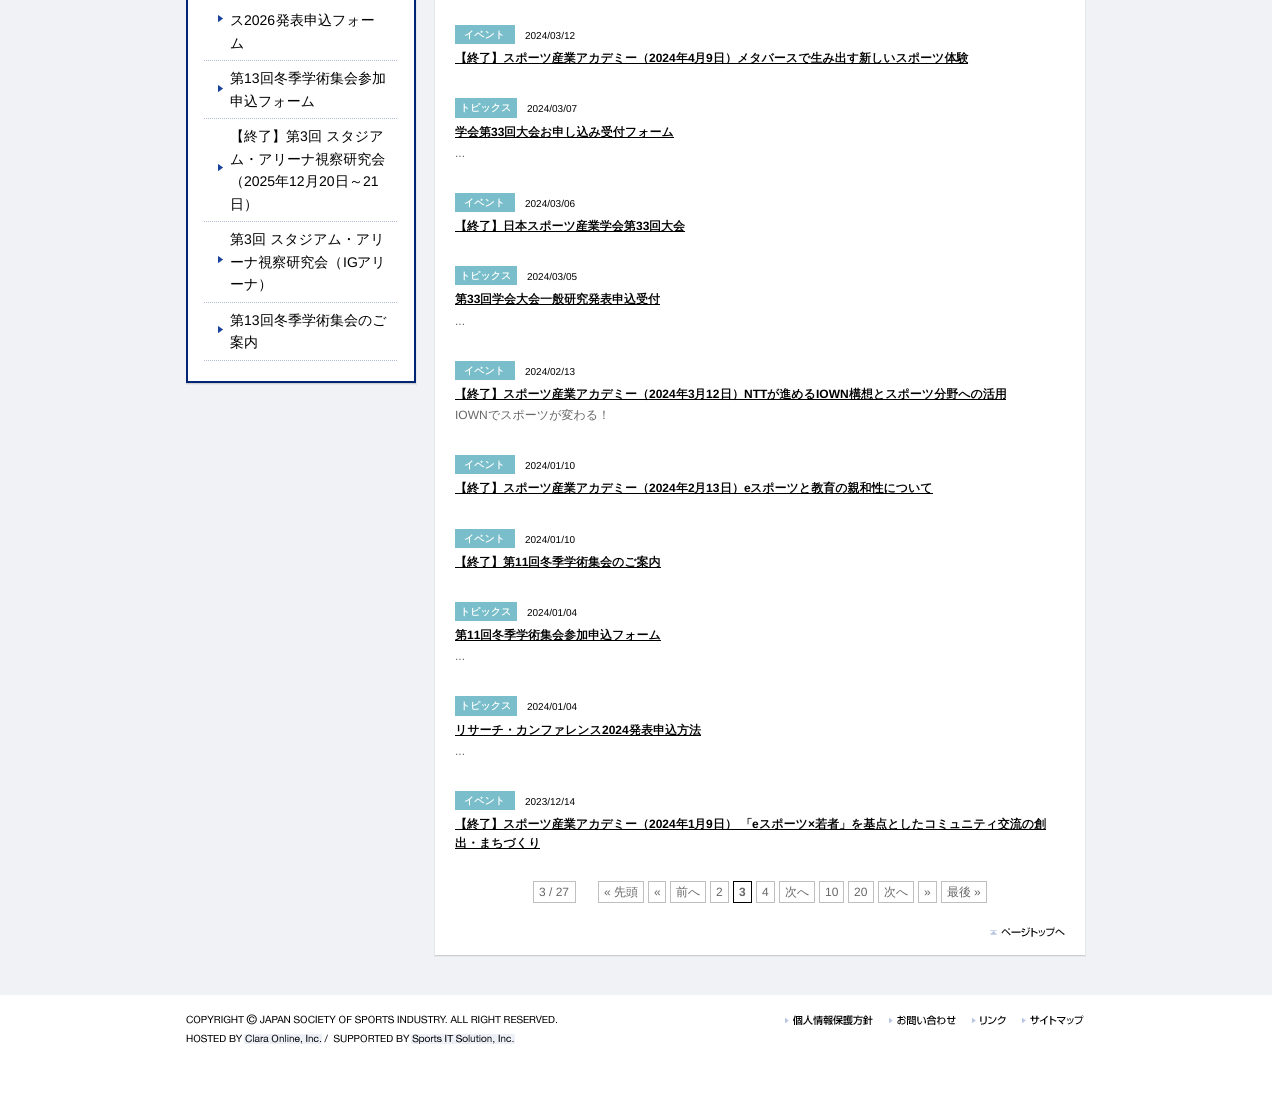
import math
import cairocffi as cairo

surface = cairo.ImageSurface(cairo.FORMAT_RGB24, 1272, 1104)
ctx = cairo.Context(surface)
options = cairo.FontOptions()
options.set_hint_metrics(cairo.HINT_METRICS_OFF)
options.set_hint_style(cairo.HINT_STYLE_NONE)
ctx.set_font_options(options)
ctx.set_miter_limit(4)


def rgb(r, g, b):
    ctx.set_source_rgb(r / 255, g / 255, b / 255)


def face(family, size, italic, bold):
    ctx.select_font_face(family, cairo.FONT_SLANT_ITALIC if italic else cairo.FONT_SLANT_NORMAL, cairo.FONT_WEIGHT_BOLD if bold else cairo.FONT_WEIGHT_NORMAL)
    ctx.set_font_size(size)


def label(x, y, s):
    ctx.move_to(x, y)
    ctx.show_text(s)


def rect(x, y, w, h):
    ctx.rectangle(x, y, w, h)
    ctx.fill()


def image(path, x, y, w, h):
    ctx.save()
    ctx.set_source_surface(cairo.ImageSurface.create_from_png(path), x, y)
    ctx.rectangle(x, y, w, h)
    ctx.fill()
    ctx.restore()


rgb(240, 242, 245)
ctx.paint()
image('image0.png', 186, 0, 231, 386)
image('image1.png', 186, 381, 230, 5)
image('image2.png', 204, 60, 193, 1)
image('image3.png', 218, 15, 5, 7)
face('WenQuanYi Zen Hei Medium', 14, 0, 0)
rgb(0, 0, 0)
label(230, 25, 'ス')
face('Liberation Sans', 14, 0, 0)
label(244, 25, '2026')
face('WenQuanYi Zen Hei Medium', 14, 0, 0)
label(276, 25, '発表申込フォー')
label(230, 48, 'ム')
image('image2.png', 204, 118, 193, 1)
image('image3.png', 218, 85, 5, 7)
label(230, 83, '第')
face('Liberation Sans', 14, 0, 0)
label(244, 83, '13')
face('WenQuanYi Zen Hei Medium', 14, 0, 0)
label(260, 83, '回冬季学術集会参加')
label(230, 106, '申込フォーム')
image('image2.png', 204, 221, 193, 1)
image('image3.png', 218, 164, 5, 7)
label(230, 141, '【終了】第')
face('Liberation Sans', 14, 0, 0)
label(300, 141, '3')
face('WenQuanYi Zen Hei Medium', 14, 0, 0)
label(308, 141, '回 スタジア')
label(230, 164, 'ム・アリーナ視察研究会')
label(230, 186, '（')
face('Liberation Sans', 14, 0, 0)
label(244, 186, '2025')
face('WenQuanYi Zen Hei Medium', 14, 0, 0)
label(275, 186, '年')
face('Liberation Sans', 14, 0, 0)
label(289, 186, '12')
face('WenQuanYi Zen Hei Medium', 14, 0, 0)
label(305, 186, '月')
face('Liberation Sans', 14, 0, 0)
label(319, 186, '20')
face('WenQuanYi Zen Hei Medium', 14, 0, 0)
label(335, 186, '日～')
face('Liberation Sans', 14, 0, 0)
label(363, 186, '21')
face('WenQuanYi Zen Hei Medium', 14, 0, 0)
label(230, 209, '日）')
image('image2.png', 204, 302, 193, 1)
image('image3.png', 218, 256, 5, 7)
label(230, 244, '第')
face('Liberation Sans', 14, 0, 0)
label(244, 244, '3')
face('WenQuanYi Zen Hei Medium', 14, 0, 0)
label(252, 244, '回 スタジアム・アリ')
label(230, 267, 'ーナ視察研究会（')
face('Liberation Sans', 14, 0, 0)
label(343, 267, 'IG')
face('WenQuanYi Zen Hei Medium', 14, 0, 0)
label(357, 267, 'アリ')
label(230, 289, 'ーナ）')
image('image2.png', 204, 360, 193, 1)
image('image3.png', 218, 326, 5, 7)
label(230, 325, '第')
face('Liberation Sans', 14, 0, 0)
label(244, 325, '13')
face('WenQuanYi Zen Hei Medium', 14, 0, 0)
label(260, 325, '回冬季学術集会のご')
label(230, 347, '案内')
rgb(255, 255, 255)
rect(435, 0, 650, 955)
image('image4.png', 435, 955, 650, 2)
rgb(228, 230, 233)
ctx.new_path()
ctx.move_to(1086, -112)
ctx.line_to(1086, 957)
ctx.line_to(1085, 957)
ctx.line_to(1085, -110)
ctx.close_path()
ctx.fill()
ctx.new_path()
ctx.move_to(434, 957)
ctx.line_to(434, -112)
ctx.line_to(435, -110)
ctx.line_to(435, 957)
ctx.close_path()
ctx.fill()
rgb(121, 190, 202)
rect(455, 25, 60, 19)
face('WenQuanYi Zen Hei', 10, 0, 1)
rgb(255, 255, 255)
label(464, 38, 'イベント')
face('Liberation Sans', 10, 0, 0)
rgb(0, 0, 0)
label(525, 39, '2024/03/12')
rect(455, 63, 513, 1)
face('WenQuanYi Zen Hei', 12, 0, 1)
label(455, 62, '【終了】スポーツ産業アカデミー（')
face('Liberation Sans', 12, 0, 1)
label(649, 62, '2024')
face('WenQuanYi Zen Hei', 12, 0, 1)
label(676, 62, '年')
face('Liberation Sans', 12, 0, 1)
label(688, 62, '4')
face('WenQuanYi Zen Hei', 12, 0, 1)
label(694, 62, '月')
face('Liberation Sans', 12, 0, 1)
label(706, 62, '9')
face('WenQuanYi Zen Hei', 12, 0, 1)
label(713, 62, '日）メタバースで生み出す新しいスポーツ体験')
rgb(121, 190, 202)
rect(455, 98, 62, 20)
face('WenQuanYi Zen Hei', 10, 0, 1)
rgb(255, 255, 255)
label(460, 111, 'トピックス')
face('Liberation Sans', 10, 0, 0)
rgb(0, 0, 0)
label(527, 112, '2024/03/07')
rect(455, 137, 219, 1)
face('WenQuanYi Zen Hei', 12, 0, 1)
label(455, 136, '学会第')
face('Liberation Sans', 12, 0, 1)
label(491, 136, '33')
face('WenQuanYi Zen Hei', 12, 0, 1)
label(504, 136, '回大会お申し込み受付フォーム')
face('Liberation Sans', 12, 0, 0)
rgb(102, 102, 102)
label(455, 157, '...')
rgb(121, 190, 202)
rect(455, 193, 60, 19)
face('WenQuanYi Zen Hei', 10, 0, 1)
rgb(255, 255, 255)
label(464, 206, 'イベント')
face('Liberation Sans', 10, 0, 0)
rgb(0, 0, 0)
label(525, 207, '2024/03/06')
rect(455, 231, 230, 1)
face('WenQuanYi Zen Hei', 12, 0, 1)
label(455, 230, '【終了】日本スポーツ産業学会第')
face('Liberation Sans', 12, 0, 1)
label(636, 230, '33')
face('WenQuanYi Zen Hei', 12, 0, 1)
label(649, 230, '回大会')
rgb(121, 190, 202)
rect(455, 266, 62, 19)
face('WenQuanYi Zen Hei', 10, 0, 1)
rgb(255, 255, 255)
label(460, 279, 'トピックス')
face('Liberation Sans', 10, 0, 0)
rgb(0, 0, 0)
label(527, 280, '2024/03/05')
rect(455, 304, 205, 1)
face('WenQuanYi Zen Hei', 12, 0, 1)
label(455, 303, '第')
face('Liberation Sans', 12, 0, 1)
label(467, 303, '33')
face('WenQuanYi Zen Hei', 12, 0, 1)
label(480, 303, '回学会大会一般研究発表申込受付')
face('Liberation Sans', 12, 0, 0)
rgb(102, 102, 102)
label(455, 325, '...')
rgb(121, 190, 202)
rect(455, 361, 60, 19)
face('WenQuanYi Zen Hei', 10, 0, 1)
rgb(255, 255, 255)
label(464, 374, 'イベント')
face('Liberation Sans', 10, 0, 0)
rgb(0, 0, 0)
label(525, 375, '2024/02/13')
rect(455, 399, 551, 1)
face('WenQuanYi Zen Hei', 12, 0, 1)
label(455, 398, '【終了】スポーツ産業アカデミー（')
face('Liberation Sans', 12, 0, 1)
label(649, 398, '2024')
face('WenQuanYi Zen Hei', 12, 0, 1)
label(676, 398, '年')
face('Liberation Sans', 12, 0, 1)
label(688, 398, '3')
face('WenQuanYi Zen Hei', 12, 0, 1)
label(694, 398, '月')
face('Liberation Sans', 12, 0, 1)
label(706, 398, '12')
face('WenQuanYi Zen Hei', 12, 0, 1)
label(720, 398, '日）')
face('Liberation Sans', 12, 0, 1)
label(744, 398, 'NTT')
face('WenQuanYi Zen Hei', 12, 0, 1)
label(767, 398, 'が進める')
face('Liberation Sans', 12, 0, 1)
label(816, 398, 'IOWN')
face('WenQuanYi Zen Hei', 12, 0, 1)
label(849, 398, '構想とスポーツ分野への活用')
face('Liberation Sans', 12, 0, 0)
rgb(102, 102, 102)
label(455, 419, 'IOWN')
face('WenQuanYi Zen Hei Medium', 12, 0, 0)
label(488, 419, 'でスポーツが変わる！')
rgb(121, 190, 202)
rect(455, 455, 60, 19)
face('WenQuanYi Zen Hei', 10, 0, 1)
rgb(255, 255, 255)
label(464, 468, 'イベント')
face('Liberation Sans', 10, 0, 0)
rgb(0, 0, 0)
label(525, 469, '2024/01/10')
rect(455, 493, 478, 1)
face('WenQuanYi Zen Hei', 12, 0, 1)
label(455, 492, '【終了】スポーツ産業アカデミー（')
face('Liberation Sans', 12, 0, 1)
label(649, 492, '2024')
face('WenQuanYi Zen Hei', 12, 0, 1)
label(676, 492, '年')
face('Liberation Sans', 12, 0, 1)
label(688, 492, '2')
face('WenQuanYi Zen Hei', 12, 0, 1)
label(694, 492, '月')
face('Liberation Sans', 12, 0, 1)
label(706, 492, '13')
face('WenQuanYi Zen Hei', 12, 0, 1)
label(720, 492, '日）')
face('Liberation Sans', 12, 0, 1)
label(744, 492, 'e')
face('WenQuanYi Zen Hei', 12, 0, 1)
label(750, 492, 'スポーツと教育の親和性について')
rgb(121, 190, 202)
rect(455, 529, 60, 19)
face('WenQuanYi Zen Hei', 10, 0, 1)
rgb(255, 255, 255)
label(464, 542, 'イベント')
face('Liberation Sans', 10, 0, 0)
rgb(0, 0, 0)
label(525, 543, '2024/01/10')
rect(455, 567, 206, 1)
face('WenQuanYi Zen Hei', 12, 0, 1)
label(455, 566, '【終了】第')
face('Liberation Sans', 12, 0, 1)
label(515, 566, '11')
face('WenQuanYi Zen Hei', 12, 0, 1)
label(528, 566, '回冬季学術集会のご案内')
rgb(121, 190, 202)
rect(455, 602, 62, 19)
face('WenQuanYi Zen Hei', 10, 0, 1)
rgb(255, 255, 255)
label(460, 615, 'トピックス')
face('Liberation Sans', 10, 0, 0)
rgb(0, 0, 0)
label(527, 616, '2024/01/04')
rect(455, 640, 206, 1)
face('WenQuanYi Zen Hei', 12, 0, 1)
label(455, 639, '第')
face('Liberation Sans', 12, 0, 1)
label(467, 639, '11')
face('WenQuanYi Zen Hei', 12, 0, 1)
label(480, 639, '回冬季学術集会参加申込フォーム')
face('Liberation Sans', 12, 0, 0)
rgb(102, 102, 102)
label(455, 660, '...')
rgb(121, 190, 202)
rect(455, 696, 62, 20)
face('WenQuanYi Zen Hei', 10, 0, 1)
rgb(255, 255, 255)
label(460, 709, 'トピックス')
face('Liberation Sans', 10, 0, 0)
rgb(0, 0, 0)
label(527, 710, '2024/01/04')
rect(455, 735, 246, 1)
face('WenQuanYi Zen Hei', 12, 0, 1)
label(455, 734, 'リサーチ・カンファレンス')
face('Liberation Sans', 12, 0, 1)
label(602, 734, '2024')
face('WenQuanYi Zen Hei', 12, 0, 1)
label(629, 734, '発表申込方法')
face('Liberation Sans', 12, 0, 0)
rgb(102, 102, 102)
label(455, 755, '...')
rgb(121, 190, 202)
rect(455, 791, 60, 19)
face('WenQuanYi Zen Hei', 10, 0, 1)
rgb(255, 255, 255)
label(464, 804, 'イベント')
face('Liberation Sans', 10, 0, 0)
rgb(0, 0, 0)
label(525, 805, '2023/12/14')
rect(455, 829, 591, 1)
face('WenQuanYi Zen Hei', 12, 0, 1)
label(455, 828, '【終了】スポーツ産業アカデミー（')
face('Liberation Sans', 12, 0, 1)
label(649, 828, '2024')
face('WenQuanYi Zen Hei', 12, 0, 1)
label(676, 828, '年')
face('Liberation Sans', 12, 0, 1)
label(688, 828, '1')
face('WenQuanYi Zen Hei', 12, 0, 1)
label(694, 828, '月')
face('Liberation Sans', 12, 0, 1)
label(706, 828, '9')
face('WenQuanYi Zen Hei', 12, 0, 1)
label(713, 828, '日） 「')
face('Liberation Sans', 12, 0, 1)
label(752, 828, 'e')
face('WenQuanYi Zen Hei', 12, 0, 1)
label(759, 828, 'スポーツ')
face('Liberation Sans', 12, 0, 1)
label(808, 828, '×')
face('WenQuanYi Zen Hei', 12, 0, 1)
label(815, 828, '若者」を基点としたコミュニティ交流の創')
rect(455, 848, 85, 1)
label(455, 847, '出・まちづくり')
ctx.rectangle(533.5, 881.5, 42, 21)
rgb(191, 191, 191)
ctx.set_line_width(1)
ctx.stroke()
face('Liberation Sans', 12, 0, 0)
rgb(102, 102, 102)
label(539, 896, '3 / 27')
ctx.rectangle(598.5, 881.5, 45, 21)
rgb(191, 191, 191)
ctx.stroke()
rgb(102, 102, 102)
label(604, 896, '«')
face('WenQuanYi Zen Hei Medium', 12, 0, 0)
label(614, 896, '先頭')
ctx.rectangle(648.5, 881.5, 17, 21)
rgb(191, 191, 191)
ctx.stroke()
face('Liberation Sans', 12, 0, 0)
rgb(102, 102, 102)
label(654, 896, '«')
ctx.rectangle(670.5, 881.5, 35, 21)
rgb(191, 191, 191)
ctx.stroke()
face('WenQuanYi Zen Hei Medium', 12, 0, 0)
rgb(102, 102, 102)
label(676, 896, '前へ')
ctx.rectangle(710.5, 881.5, 18, 21)
rgb(191, 191, 191)
ctx.stroke()
face('Liberation Sans', 12, 0, 0)
rgb(102, 102, 102)
label(716, 896, '2')
ctx.rectangle(733.5, 881.5, 18, 21)
rgb(0, 0, 0)
ctx.stroke()
face('Liberation Sans', 12, 0, 1)
rgb(102, 102, 102)
label(739, 896, '3')
ctx.rectangle(756.5, 881.5, 18, 21)
rgb(191, 191, 191)
ctx.stroke()
face('Liberation Sans', 12, 0, 0)
rgb(102, 102, 102)
label(762, 896, '4')
ctx.rectangle(779.5, 881.5, 35, 21)
rgb(191, 191, 191)
ctx.stroke()
face('WenQuanYi Zen Hei Medium', 12, 0, 0)
rgb(102, 102, 102)
label(785, 896, '次へ')
ctx.rectangle(819.5, 881.5, 24, 21)
rgb(191, 191, 191)
ctx.stroke()
face('Liberation Sans', 12, 0, 0)
rgb(102, 102, 102)
label(825, 896, '10')
ctx.rectangle(848.5, 881.5, 25, 21)
rgb(191, 191, 191)
ctx.stroke()
rgb(102, 102, 102)
label(854, 896, '20')
ctx.rectangle(878.5, 881.5, 35, 21)
rgb(191, 191, 191)
ctx.stroke()
face('WenQuanYi Zen Hei Medium', 12, 0, 0)
rgb(102, 102, 102)
label(884, 896, '次へ')
ctx.rectangle(918.5, 881.5, 18, 21)
rgb(191, 191, 191)
ctx.stroke()
face('Liberation Sans', 12, 0, 0)
rgb(102, 102, 102)
label(924, 896, '»')
ctx.rectangle(941.5, 881.5, 45, 21)
rgb(191, 191, 191)
ctx.stroke()
face('WenQuanYi Zen Hei Medium', 12, 0, 0)
rgb(102, 102, 102)
label(947, 896, '最後')
face('Liberation Sans', 12, 0, 0)
label(974, 896, '»')
image('image5.png', 990, 927, 75, 10)
rgb(255, 255, 255)
rect(0, 995, 1272, 109)
image('image6.png', 186, 1014, 371, 11)
image('image7.png', 186, 1034, 57, 9)
image('image8.png', 244, 1034, 78, 10)
image('image9.png', 324, 1034, 86, 9)
image('image10.png', 411, 1034, 104, 10)
image('image11.png', 785, 1015, 88, 10)
image('image12.png', 889, 1015, 67, 10)
image('image13.png', 972, 1015, 34, 10)
image('image14.png', 1022, 1015, 62, 10)
surface.write_to_png('render.png')
